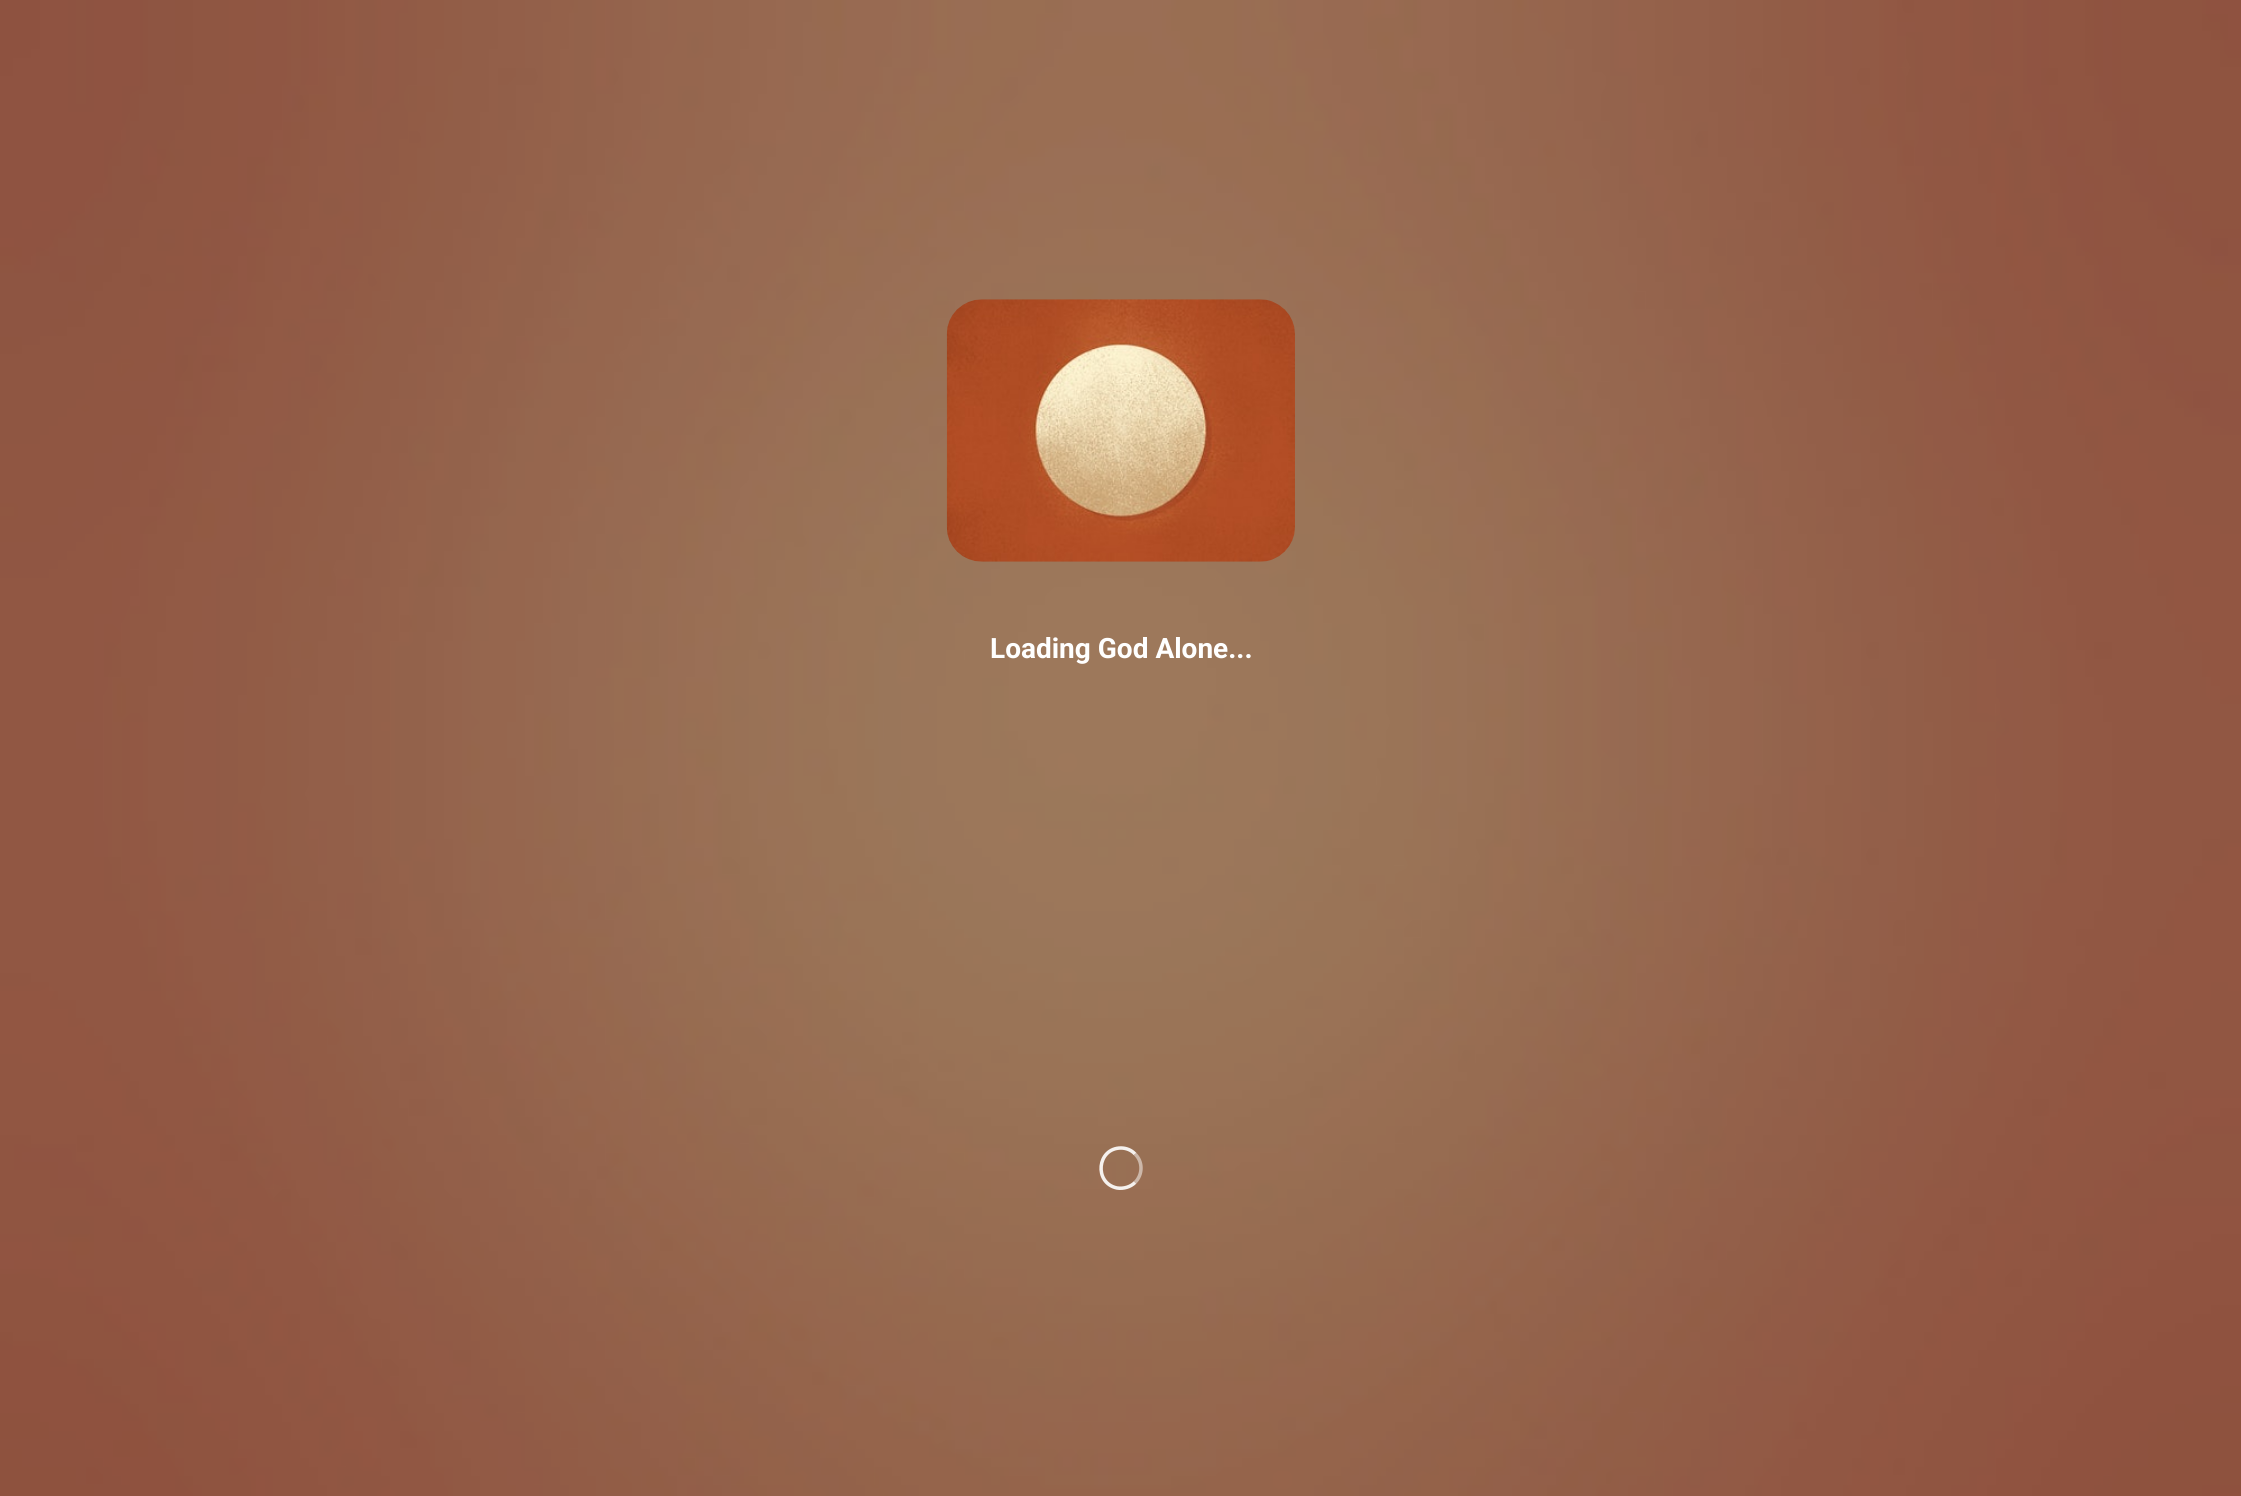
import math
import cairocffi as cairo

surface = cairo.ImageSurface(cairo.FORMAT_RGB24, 2241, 1496)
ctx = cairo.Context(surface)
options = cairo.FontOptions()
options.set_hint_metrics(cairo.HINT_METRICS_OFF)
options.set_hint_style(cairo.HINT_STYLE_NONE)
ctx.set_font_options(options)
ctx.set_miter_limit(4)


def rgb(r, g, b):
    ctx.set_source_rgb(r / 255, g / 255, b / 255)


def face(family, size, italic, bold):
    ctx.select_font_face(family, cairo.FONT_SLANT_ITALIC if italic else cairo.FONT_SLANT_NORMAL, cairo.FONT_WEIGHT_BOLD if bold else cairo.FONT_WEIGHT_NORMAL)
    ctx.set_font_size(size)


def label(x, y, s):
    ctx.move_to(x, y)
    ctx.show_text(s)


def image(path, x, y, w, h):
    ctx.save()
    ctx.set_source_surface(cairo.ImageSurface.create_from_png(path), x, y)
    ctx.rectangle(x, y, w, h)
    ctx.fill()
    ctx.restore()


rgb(255, 255, 255)
ctx.paint()
image('image0.png', 0, 0, 2241, 1496)
image('image1.png', 946, 299, 349, 263)
face('Roboto', 28, 0, 1)
rgb(255, 255, 255)
label(990, 658, 'Loading God Alone...')
ctx.new_path()
ctx.move_to(1135, 1154)
ctx.curve_to(1143, 1161.5, 1143, 1174.5, 1135, 1182.5)
rgb(204, 183, 169)
ctx.set_line_width(3.5)
ctx.stroke()
ctx.new_path()
ctx.move_to(1135, 1182.5)
ctx.curve_to(1130.5, 1187, 1123.5, 1189, 1117, 1188)
ctx.curve_to(1093.5, 1183, 1097, 1148, 1121, 1148)
ctx.curve_to(1126, 1148, 1131.5, 1150, 1135, 1154)
ctx.set_source_rgba(1, 1, 1, 0.9)
ctx.stroke()
surface.write_to_png('render.png')
